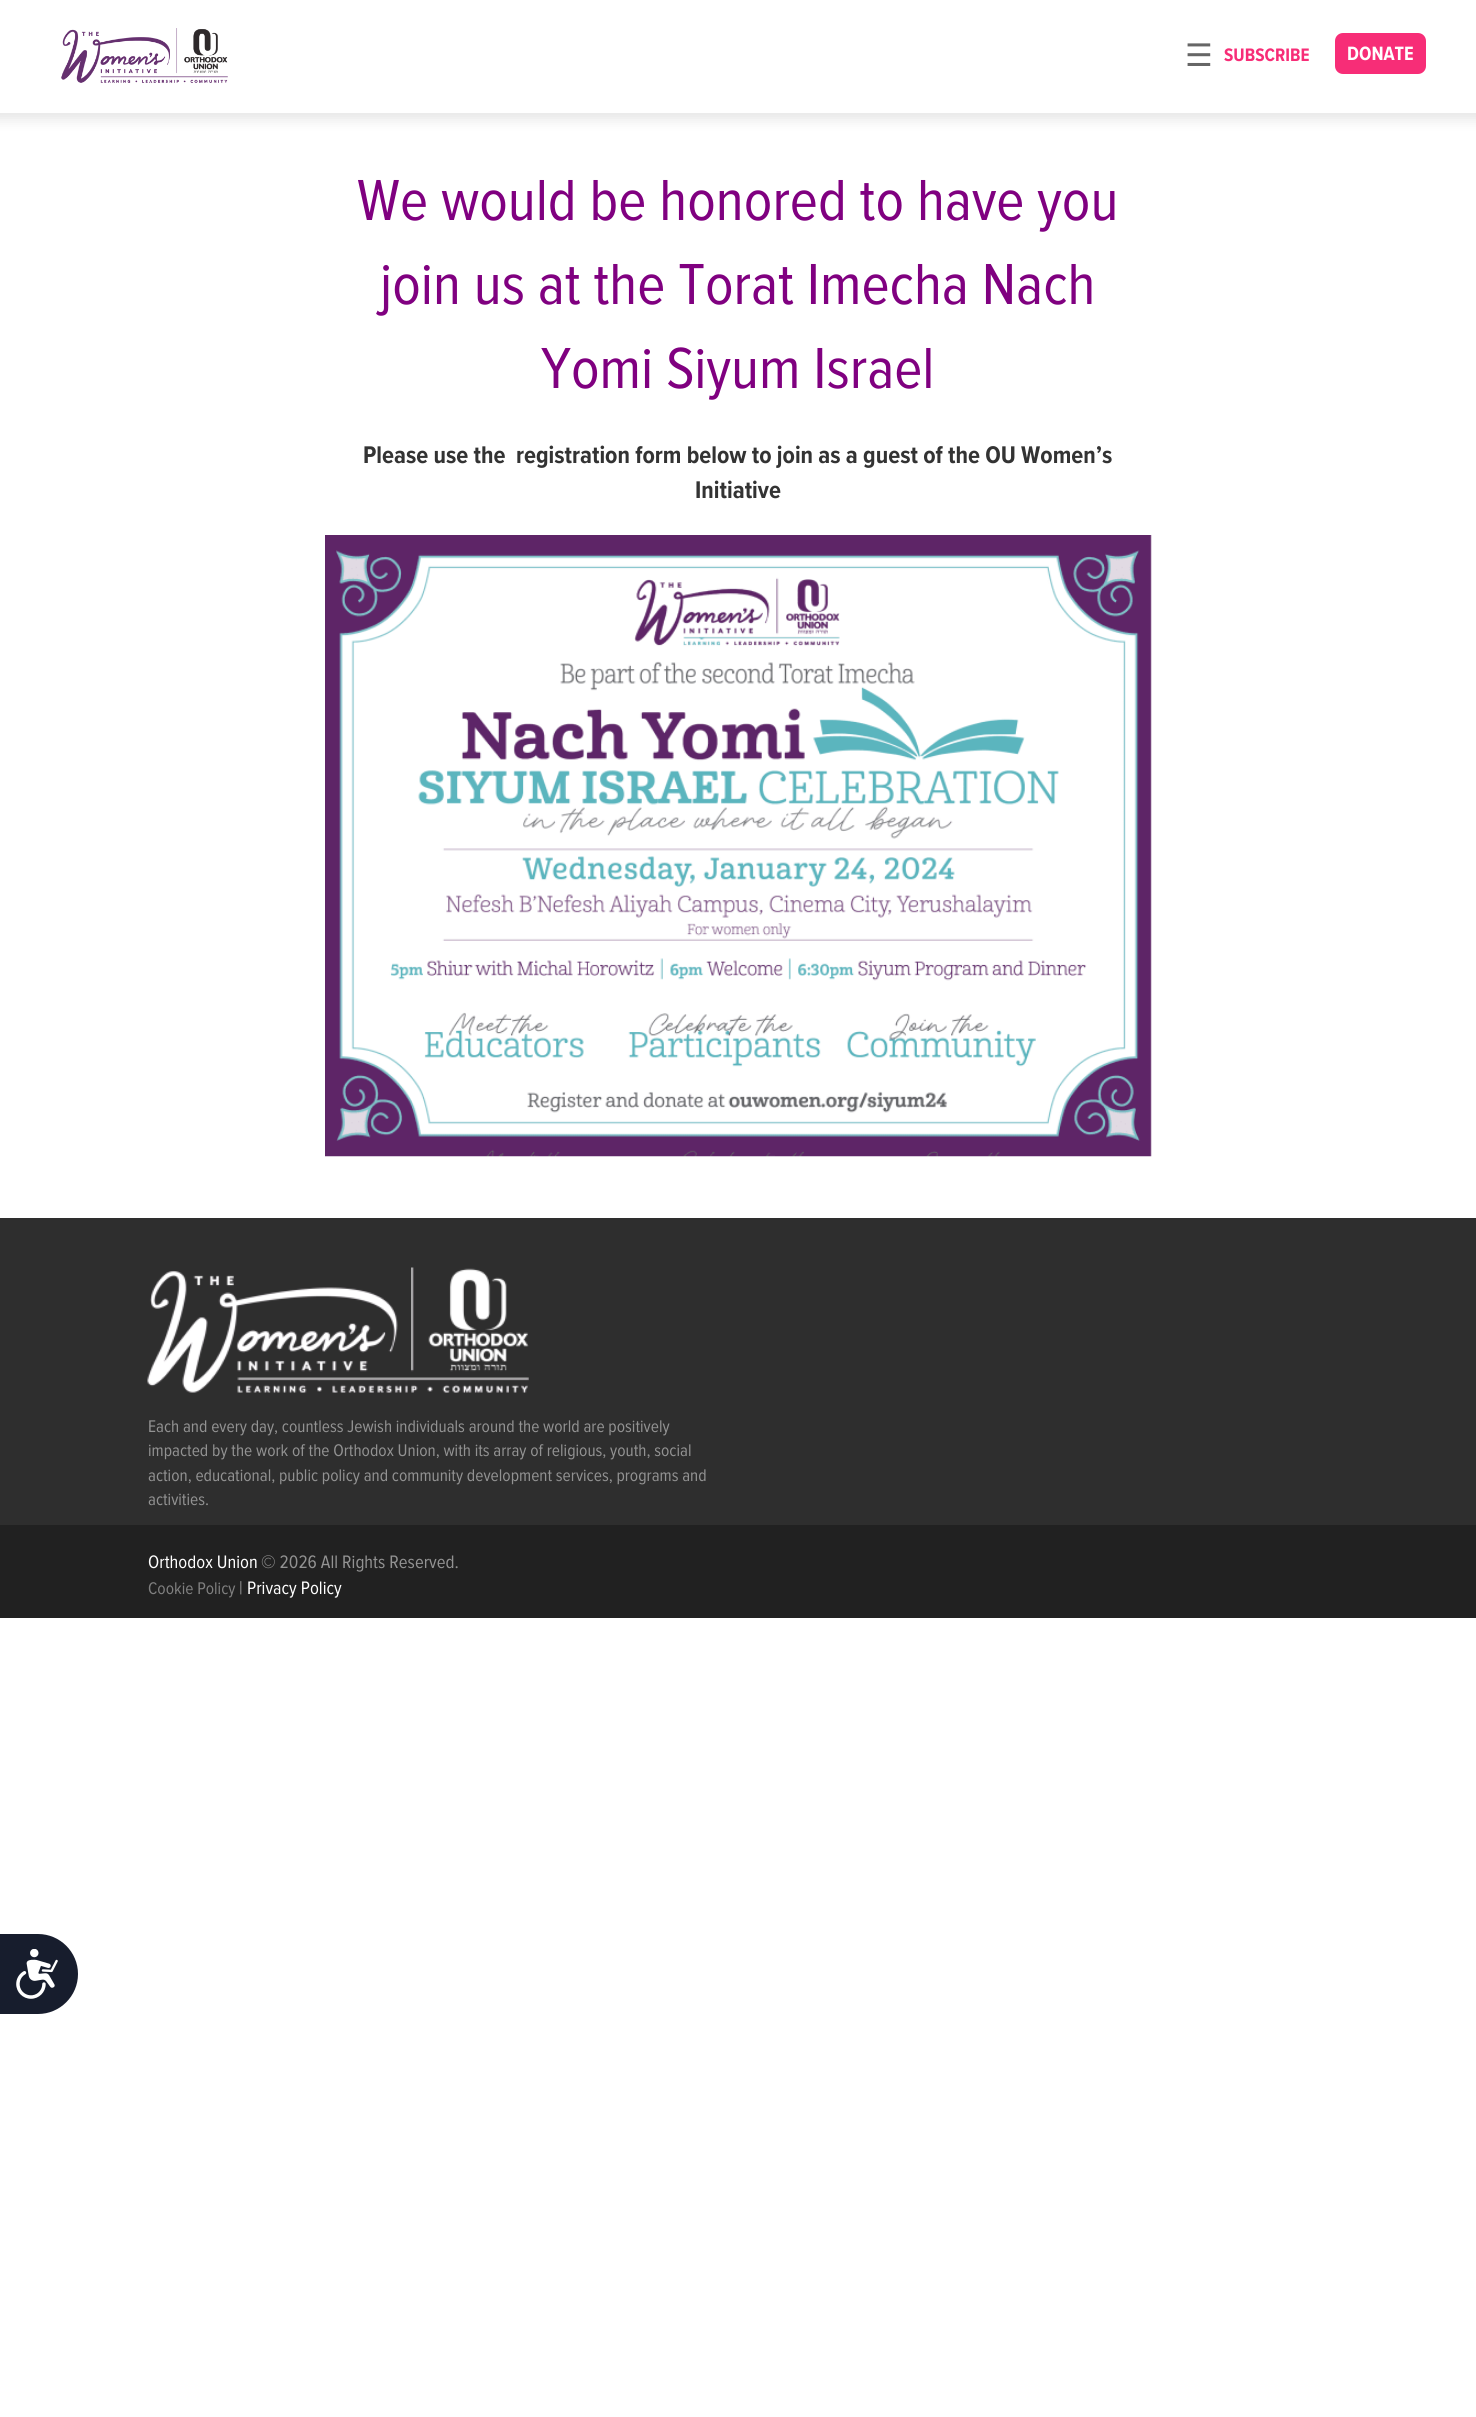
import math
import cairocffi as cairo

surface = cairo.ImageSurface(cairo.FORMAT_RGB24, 1476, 2417)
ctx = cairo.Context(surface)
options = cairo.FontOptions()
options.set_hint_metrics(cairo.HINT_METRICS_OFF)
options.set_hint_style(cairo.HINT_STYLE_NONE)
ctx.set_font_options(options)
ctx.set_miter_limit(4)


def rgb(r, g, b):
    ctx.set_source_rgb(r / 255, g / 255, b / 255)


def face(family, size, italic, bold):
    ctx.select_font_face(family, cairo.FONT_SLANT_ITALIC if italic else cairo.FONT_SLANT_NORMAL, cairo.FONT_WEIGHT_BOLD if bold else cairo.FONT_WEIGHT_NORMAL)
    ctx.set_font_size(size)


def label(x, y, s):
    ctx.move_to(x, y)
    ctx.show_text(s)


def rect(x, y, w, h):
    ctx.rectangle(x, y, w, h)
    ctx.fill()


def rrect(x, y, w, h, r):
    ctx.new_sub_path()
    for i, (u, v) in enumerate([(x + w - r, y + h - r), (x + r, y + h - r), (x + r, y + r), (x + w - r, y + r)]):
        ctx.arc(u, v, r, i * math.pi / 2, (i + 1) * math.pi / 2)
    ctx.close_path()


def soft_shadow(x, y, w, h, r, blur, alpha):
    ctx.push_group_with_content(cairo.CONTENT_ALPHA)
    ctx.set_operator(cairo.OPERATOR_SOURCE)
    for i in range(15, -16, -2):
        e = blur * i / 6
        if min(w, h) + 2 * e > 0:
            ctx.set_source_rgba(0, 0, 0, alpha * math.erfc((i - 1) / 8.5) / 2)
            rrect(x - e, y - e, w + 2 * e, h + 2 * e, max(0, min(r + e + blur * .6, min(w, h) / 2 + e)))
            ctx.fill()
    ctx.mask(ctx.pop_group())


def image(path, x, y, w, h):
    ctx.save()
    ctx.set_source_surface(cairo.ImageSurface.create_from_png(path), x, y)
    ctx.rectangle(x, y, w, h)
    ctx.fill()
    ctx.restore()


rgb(255, 255, 255)
ctx.paint()
rgb(13, 13, 13)
soft_shadow(-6, -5, 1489, 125, 0, 6, 0.1)
rgb(255, 255, 255)
rect(0, 0, 1476, 113)
face('DejaVu Sans', 31, 0, 0)
rgb(102, 102, 102)
label(1185, 66, '☰')
image('image0.png', 61, 28, 167, 55)
face('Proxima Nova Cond', 18.75, 0, 1)
rgb(247, 45, 119)
label(1224, 61, 'SUBSCRIBE')
rrect(1335, 33, 91, 41, 8)
ctx.fill()
face('Proxima Nova Cond', 20, 0, 1)
rgb(255, 255, 255)
label(1347, 60, 'DONATE')
face('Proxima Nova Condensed', 60, 0, 0)
rgb(128, 0, 128)
label(357, 220, 'We would be honored to have you')
label(380, 304, 'join us at the Torat Imecha Nach')
label(541, 388, 'Yomi Siyum Israel')
face('Proxima Nova Cond', 25, 0, 1)
rgb(51, 51, 51)
label(363, 463, 'Please use the  registration form below to join as a guest of the OU Women’s')
label(695, 498, 'Initiative')
image('image1.png', 325, 535, 827, 622)
rgb(46, 46, 46)
rect(0, 1218, 1476, 307)
image('image2.png', 147, 1267, 382, 126)
face('Proxima Nova Condensed', 17.5, 0, 0)
rgb(146, 146, 146)
label(148, 1432, 'Each and every day, countless Jewish individuals around the world are positively')
label(148, 1456, 'impacted by the work of the Orthodox Union, with its array of religious, youth, social')
label(148, 1481, 'action, educational, public policy and community development services, programs and')
label(148, 1505, 'activities.')
rgb(33, 33, 33)
rect(0, 1525, 1476, 93)
face('Proxima Nova Condensed', 18.75, 0, 0)
rgb(255, 255, 255)
label(148, 1568, 'Orthodox Union')
rgb(146, 146, 146)
label(261, 1568, '© 2026 All Rights Reserved.')
face('Proxima Nova Condensed', 17.5, 0, 0)
rgb(128, 128, 128)
label(148, 1594, 'Cookie Policy')
face('Proxima Nova Condensed', 18.75, 0, 0)
rgb(146, 146, 146)
label(239, 1594, '|')
rgb(255, 255, 255)
label(247, 1594, 'Privacy Policy')
rgb(23, 29, 45)
ctx.new_path()
ctx.move_to(0, 1934)
ctx.line_to(38, 1934)
ctx.curve_to(60, 1934, 78, 1952, 78, 1974)
ctx.curve_to(78, 1996, 60, 2014, 38, 2014)
ctx.line_to(0, 2014)
ctx.close_path()
ctx.fill()
image('image3.png', 16, 1949, 42, 50)
surface.write_to_png('render.png')
